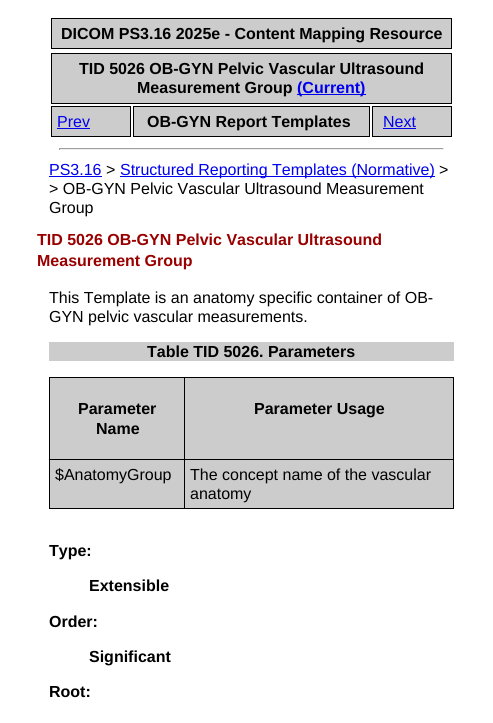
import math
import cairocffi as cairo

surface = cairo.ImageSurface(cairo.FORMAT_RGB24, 493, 723)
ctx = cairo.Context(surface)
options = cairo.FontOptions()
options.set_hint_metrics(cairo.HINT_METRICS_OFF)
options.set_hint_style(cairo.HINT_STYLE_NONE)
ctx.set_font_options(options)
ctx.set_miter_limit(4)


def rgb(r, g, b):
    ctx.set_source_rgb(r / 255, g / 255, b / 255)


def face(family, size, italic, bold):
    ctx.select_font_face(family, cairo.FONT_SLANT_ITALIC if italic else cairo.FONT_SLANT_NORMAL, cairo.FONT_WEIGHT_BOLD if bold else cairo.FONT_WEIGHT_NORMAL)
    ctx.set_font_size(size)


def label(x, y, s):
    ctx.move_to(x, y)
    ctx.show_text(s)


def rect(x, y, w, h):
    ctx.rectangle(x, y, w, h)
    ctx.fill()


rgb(255, 255, 255)
ctx.paint()
rgb(204, 204, 204)
ctx.rectangle(51.5, 18.5, 400, 30)
ctx.fill_preserve()
rgb(0, 0, 0)
ctx.set_line_width(1)
ctx.stroke()
face('Liberation Sans', 16, 0, 1)
label(61, 39, 'DICOM PS3.16 2025e - Content Mapping Resource')
rgb(204, 204, 204)
ctx.rectangle(51.5, 53.5, 400, 50)
ctx.fill_preserve()
rgb(0, 0, 0)
ctx.stroke()
label(79, 74, 'TID 5026 OB-GYN Pelvic Vascular Ultrasound')
label(137, 93, 'Measurement Group')
rgb(0, 0, 238)
rect(297, 94, 69, 1)
label(297, 93, '(Current)')
rgb(204, 204, 204)
ctx.rectangle(51.5, 106.5, 79, 30)
ctx.fill_preserve()
rgb(0, 0, 0)
ctx.stroke()
face('Liberation Sans', 16, 0, 0)
rgb(0, 0, 238)
label(57, 127, 'Prev')
rect(57, 128, 33, 1)
rgb(204, 204, 204)
ctx.rectangle(133.5, 106.5, 236, 30)
ctx.fill_preserve()
rgb(0, 0, 0)
ctx.stroke()
face('Liberation Sans', 16, 0, 1)
label(147, 127, 'OB-GYN Report Templates')
rgb(204, 204, 204)
ctx.rectangle(372.5, 106.5, 79, 30)
ctx.fill_preserve()
rgb(0, 0, 0)
ctx.stroke()
face('Liberation Sans', 16, 0, 0)
rgb(0, 0, 238)
label(383, 127, 'Next')
rect(383, 128, 33, 1)
rgb(159, 159, 159)
rect(59, 148, 385, 1)
rgb(238, 238, 238)
rect(443, 148, 1, 2)
rect(59, 149, 385, 1)
rgb(159, 159, 159)
rect(59, 148, 1, 2)
rgb(0, 0, 238)
label(49, 175, 'PS3.16')
rect(49, 176, 53, 1)
rgb(0, 0, 0)
label(106, 175, '>')
rgb(0, 0, 238)
rect(120, 176, 315, 1)
label(120, 175, 'Structured Reporting Templates (Normative)')
rgb(0, 0, 0)
label(439, 175, '>')
label(49, 194, '> OB-GYN Pelvic Vascular Ultrasound Measurement')
label(49, 213, 'Group')
face('Liberation Sans', 16, 0, 1)
rgb(153, 0, 0)
label(37, 245, 'TID 5026 OB-GYN Pelvic Vascular Ultrasound')
label(37, 266, 'Measurement Group')
face('Liberation Sans', 16, 0, 0)
rgb(0, 0, 0)
label(49, 303, 'This Template is an anatomy specific container of OB-')
label(49, 322, 'GYN pelvic vascular measurements.')
rgb(204, 204, 204)
rect(49, 342, 405, 19)
face('Liberation Sans', 16, 0, 1)
rgb(0, 0, 0)
label(147, 357, 'Table TID 5026. Parameters')
rgb(204, 204, 204)
rect(50, 378, 134, 81)
rgb(0, 0, 0)
rect(184, 377, 270, 1)
rect(184, 459, 270, 1)
rect(453, 459, 1, 50)
rect(184, 508, 270, 1)
rect(184, 459, 1, 50)
rect(49, 459, 136, 1)
rect(184, 377, 1, 83)
rect(49, 377, 136, 1)
rect(49, 508, 136, 1)
rect(49, 459, 1, 50)
rect(49, 377, 1, 83)
label(78, 414, 'Parameter')
label(96, 434, 'Name')
rgb(204, 204, 204)
rect(185, 378, 268, 81)
rgb(0, 0, 0)
rect(453, 377, 1, 83)
label(254, 414, 'Parameter Usage')
rgb(204, 204, 204)
rect(50, 460, 134, 48)
face('Liberation Sans', 16, 0, 0)
rgb(0, 0, 0)
label(55, 480, '$AnatomyGroup')
rgb(204, 204, 204)
rect(185, 460, 268, 48)
rgb(0, 0, 0)
label(190, 480, 'The concept name of the vascular')
label(190, 499, 'anatomy')
face('Liberation Sans', 16, 0, 1)
label(49, 556, 'Type:')
label(89, 591, 'Extensible')
label(49, 627, 'Order:')
label(89, 662, 'Significant')
label(49, 697, 'Root:')
surface.write_to_png('render.png')
